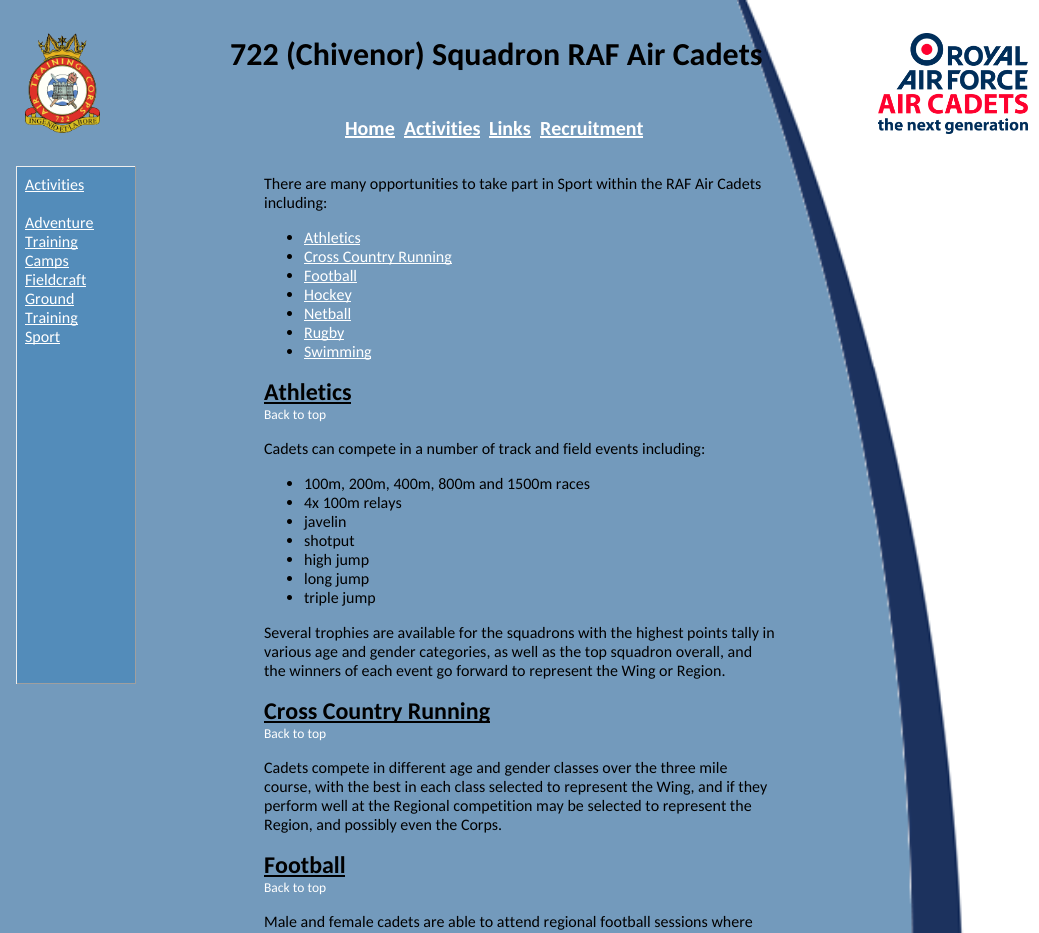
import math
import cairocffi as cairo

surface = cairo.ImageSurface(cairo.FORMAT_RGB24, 1039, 933)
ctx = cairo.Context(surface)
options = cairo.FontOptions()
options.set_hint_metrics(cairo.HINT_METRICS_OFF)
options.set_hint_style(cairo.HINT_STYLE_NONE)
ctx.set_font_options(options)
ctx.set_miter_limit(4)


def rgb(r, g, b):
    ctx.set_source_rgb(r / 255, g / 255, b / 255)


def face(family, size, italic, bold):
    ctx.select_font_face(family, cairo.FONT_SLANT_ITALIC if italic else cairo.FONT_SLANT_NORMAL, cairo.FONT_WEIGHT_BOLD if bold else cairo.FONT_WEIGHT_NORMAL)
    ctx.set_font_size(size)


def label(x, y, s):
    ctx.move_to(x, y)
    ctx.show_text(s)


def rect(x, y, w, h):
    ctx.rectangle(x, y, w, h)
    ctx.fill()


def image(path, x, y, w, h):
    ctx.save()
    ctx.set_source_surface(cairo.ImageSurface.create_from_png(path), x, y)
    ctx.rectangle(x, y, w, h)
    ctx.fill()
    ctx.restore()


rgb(115, 154, 188)
ctx.paint()
image('image0.png', 737, 0, 302, 933)
image('image1.png', 25, 33, 75, 100)
face('Carlito', 32, 0, 1)
rgb(0, 0, 0)
label(230, 65, '722 (Chivenor) Squadron RAF Air Cadets')
image('image2.png', 878, 33, 150, 101)
face('Carlito', 20, 0, 1)
rgb(255, 255, 255)
label(345, 135, 'Home')
rect(345, 136, 50, 2)
label(404, 135, 'Activities')
rect(404, 136, 76, 2)
label(489, 135, 'Links')
rect(489, 136, 42, 2)
label(540, 135, 'Recruitment')
rect(540, 136, 103, 2)
rgb(83, 140, 186)
rect(17, 167, 118, 516)
rgb(238, 238, 238)
rect(16, 166, 120, 1)
rgb(159, 159, 159)
rect(135, 166, 1, 518)
rect(16, 683, 120, 1)
rgb(238, 238, 238)
rect(16, 166, 1, 518)
face('Carlito', 16, 0, 0)
rgb(255, 255, 255)
label(25, 190, 'Activities')
rect(25, 191, 59, 1)
label(25, 228, 'Adventure')
rect(25, 229, 69, 1)
rect(25, 248, 53, 1)
label(25, 247, 'Training')
rect(25, 267, 44, 1)
label(25, 266, 'Camps')
label(25, 285, 'Fieldcraft')
rect(25, 286, 61, 1)
label(25, 304, 'Ground')
rect(25, 305, 49, 1)
rect(25, 324, 53, 1)
label(25, 323, 'Training')
rect(25, 343, 35, 1)
label(25, 342, 'Sport')
rgb(0, 0, 0)
label(264, 189, 'There are many opportunities to take part in Sport within the RAF Air Cadets')
label(264, 208, 'including:')
ctx.new_path()
ctx.arc(289.5, 237.5, 2.5, 0, 2 * math.pi)
ctx.fill()
rgb(255, 255, 255)
label(304, 243, 'Athletics')
rect(304, 244, 56, 1)
rgb(0, 0, 0)
ctx.new_path()
ctx.arc(289.5, 256.5, 2.5, 0, 2 * math.pi)
ctx.fill()
rgb(255, 255, 255)
rect(304, 263, 148, 1)
label(304, 262, 'Cross Country Running')
rgb(0, 0, 0)
ctx.new_path()
ctx.arc(289.5, 275.5, 2.5, 0, 2 * math.pi)
ctx.fill()
rgb(255, 255, 255)
label(304, 281, 'Football')
rect(304, 282, 53, 1)
rgb(0, 0, 0)
ctx.new_path()
ctx.arc(289.5, 294.5, 2.5, 0, 2 * math.pi)
ctx.fill()
rgb(255, 255, 255)
rect(304, 301, 47, 1)
label(304, 300, 'Hockey')
rgb(0, 0, 0)
ctx.new_path()
ctx.arc(289.5, 313.5, 2.5, 0, 2 * math.pi)
ctx.fill()
rgb(255, 255, 255)
label(304, 319, 'Netball')
rect(304, 320, 47, 1)
rgb(0, 0, 0)
ctx.new_path()
ctx.arc(289.5, 332.5, 2.5, 0, 2 * math.pi)
ctx.fill()
rgb(255, 255, 255)
rect(304, 339, 40, 1)
label(304, 338, 'Rugby')
rgb(0, 0, 0)
ctx.new_path()
ctx.arc(289.5, 351.5, 2.5, 0, 2 * math.pi)
ctx.fill()
rgb(255, 255, 255)
rect(304, 358, 67, 1)
label(304, 357, 'Swimming')
face('Carlito', 24, 0, 1)
rgb(0, 0, 0)
label(264, 400, 'Athletics')
rect(264, 402, 87, 2)
face('Carlito', 13.5, 0, 0)
rgb(255, 255, 255)
label(264, 419, 'Back to top')
face('Carlito', 16, 0, 0)
rgb(0, 0, 0)
label(264, 454, 'Cadets can compete in a number of track and field events including:')
ctx.new_path()
ctx.arc(289.5, 483.5, 2.5, 0, 2 * math.pi)
ctx.fill()
label(304, 489, '100m, 200m, 400m, 800m and 1500m races')
ctx.new_path()
ctx.arc(289.5, 502.5, 2.5, 0, 2 * math.pi)
ctx.fill()
label(304, 508, '4x 100m relays')
ctx.new_path()
ctx.arc(289.5, 521.5, 2.5, 0, 2 * math.pi)
ctx.fill()
label(304, 527, 'javelin')
ctx.new_path()
ctx.arc(289.5, 540.5, 2.5, 0, 2 * math.pi)
ctx.fill()
label(304, 546, 'shotput')
ctx.new_path()
ctx.arc(289.5, 559.5, 2.5, 0, 2 * math.pi)
ctx.fill()
label(304, 565, 'high jump')
ctx.new_path()
ctx.arc(289.5, 578.5, 2.5, 0, 2 * math.pi)
ctx.fill()
label(304, 584, 'long jump')
ctx.new_path()
ctx.arc(289.5, 597.5, 2.5, 0, 2 * math.pi)
ctx.fill()
label(304, 603, 'triple jump')
label(264, 638, 'Several trophies are available for the squadrons with the highest points tally in')
label(264, 657, 'various age and gender categories, as well as the top squadron overall, and')
label(264, 676, 'the winners of each event go forward to represent the Wing or Region.')
rect(264, 721, 226, 2)
face('Carlito', 24, 0, 1)
label(264, 719, 'Cross Country Running')
face('Carlito', 13.5, 0, 0)
rgb(255, 255, 255)
label(264, 738, 'Back to top')
face('Carlito', 16, 0, 0)
rgb(0, 0, 0)
label(264, 773, 'Cadets compete in different age and gender classes over the three mile')
label(264, 792, 'course, with the best in each class selected to represent the Wing, and if they')
label(264, 811, 'perform well at the Regional competition may be selected to represent the')
label(264, 830, 'Region, and possibly even the Corps.')
face('Carlito', 24, 0, 1)
label(264, 873, 'Football')
rect(264, 875, 81, 2)
face('Carlito', 13.5, 0, 0)
rgb(255, 255, 255)
label(264, 892, 'Back to top')
face('Carlito', 16, 0, 0)
rgb(0, 0, 0)
label(264, 927, 'Male and female cadets are able to attend regional football sessions where')
surface.write_to_png('render.png')
